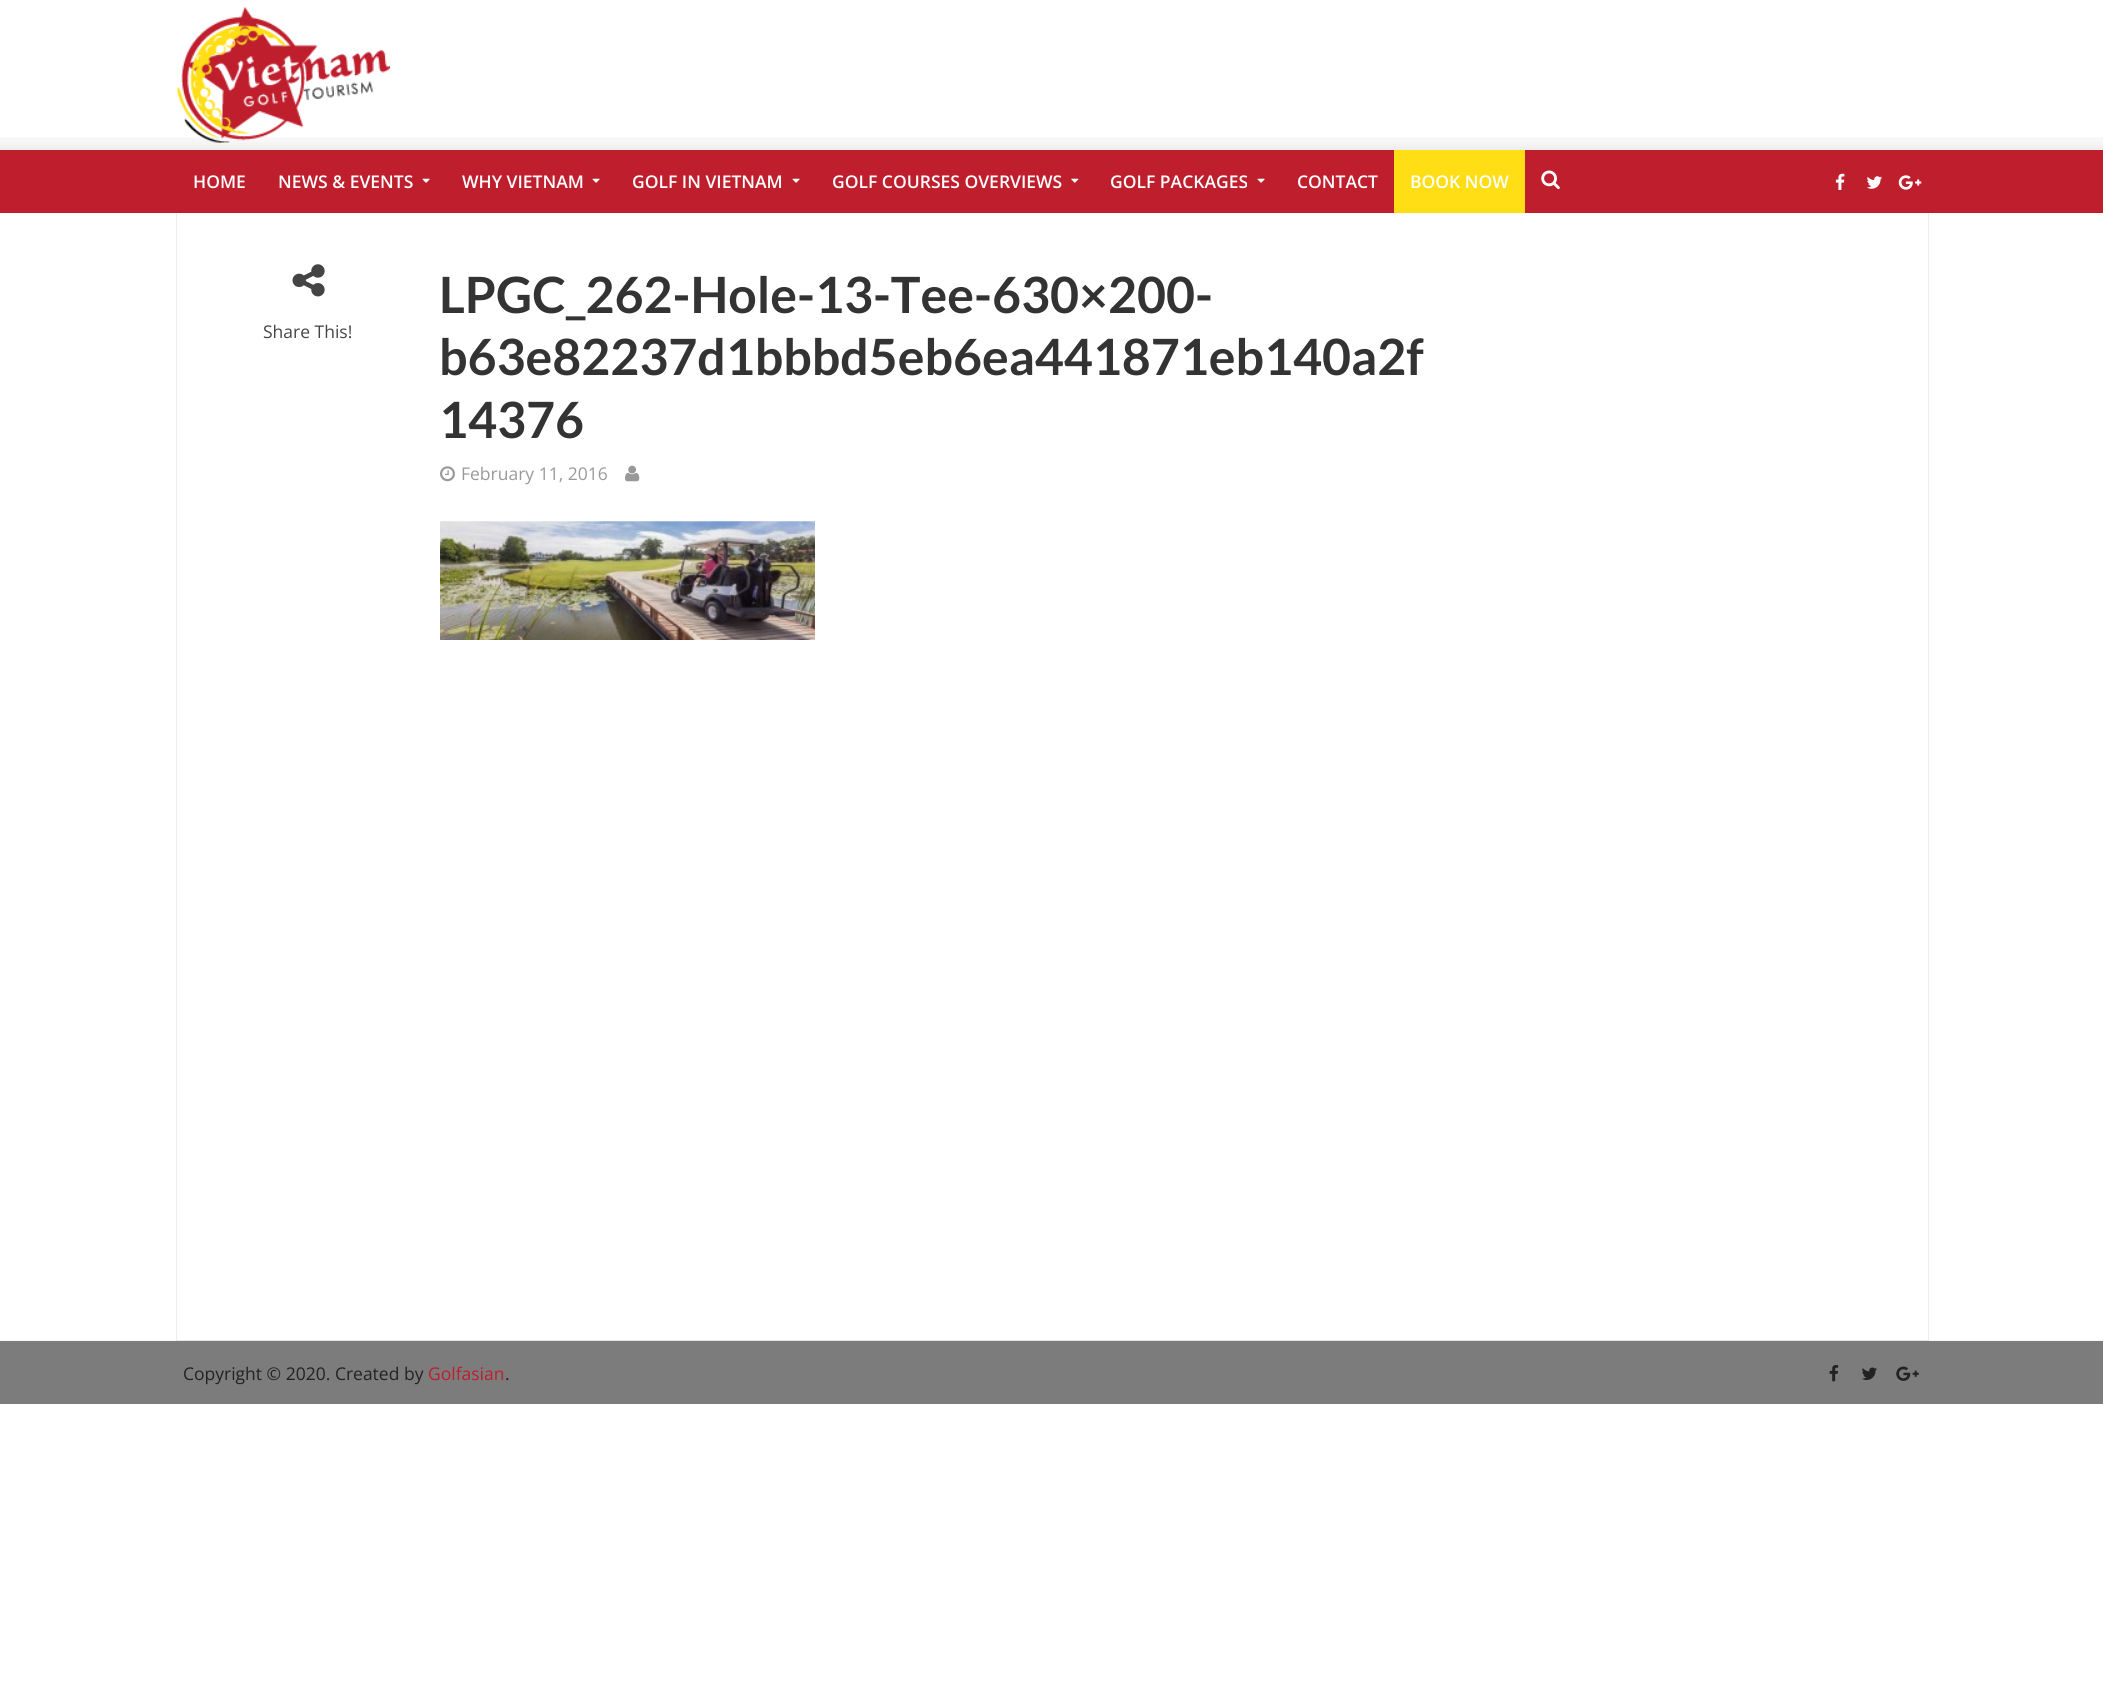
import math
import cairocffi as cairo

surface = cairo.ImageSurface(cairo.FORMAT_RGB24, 2103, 1682)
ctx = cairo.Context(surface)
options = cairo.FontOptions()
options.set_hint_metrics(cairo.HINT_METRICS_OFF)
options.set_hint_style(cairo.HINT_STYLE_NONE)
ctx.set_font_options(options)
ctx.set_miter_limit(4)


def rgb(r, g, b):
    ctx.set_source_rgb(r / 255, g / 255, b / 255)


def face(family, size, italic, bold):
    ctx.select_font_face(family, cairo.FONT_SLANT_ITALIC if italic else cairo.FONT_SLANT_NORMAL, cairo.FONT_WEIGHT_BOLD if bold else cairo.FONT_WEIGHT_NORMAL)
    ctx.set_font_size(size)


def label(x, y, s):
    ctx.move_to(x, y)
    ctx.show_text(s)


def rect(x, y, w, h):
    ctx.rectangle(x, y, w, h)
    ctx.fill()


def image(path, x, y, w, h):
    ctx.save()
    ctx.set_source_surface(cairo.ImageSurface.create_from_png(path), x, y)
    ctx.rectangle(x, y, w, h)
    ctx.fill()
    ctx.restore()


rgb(255, 255, 255)
ctx.paint()
image('image0.png', 0, 137, 2103, 13)
image('image1.png', 177, 7, 213, 136)
rgb(247, 247, 247)
rect(0, 1340, 2103, 1)
ctx.rectangle(176.5, 211.5, 1752, 1129)
ctx.set_source_rgba(0.267, 0.267, 0.267, 0.1)
ctx.set_line_width(1)
ctx.stroke()
rgb(191, 30, 45)
rect(0, 150, 2103, 63)
face('Open Sans SemiBold', 17.5, 0, 0)
rgb(255, 255, 255)
label(193, 188, 'HOME')
label(278, 188, 'NEWS & EVENTS')
image('image2.png', 422, 178, 8, 5)
label(462, 188, 'WHY VIETNAM')
image('image2.png', 592, 178, 8, 5)
label(632, 188, 'GOLF IN VIETNAM')
image('image2.png', 792, 178, 8, 5)
label(832, 188, 'GOLF COURSES OVERVIEWS')
image('image3.png', 1071, 178, 8, 5)
label(1110, 188, 'GOLF PACKAGES')
image('image2.png', 1257, 178, 8, 5)
label(1297, 188, 'CONTACT')
rgb(255, 222, 22)
rect(1394, 150, 131, 63)
rgb(255, 255, 255)
label(1410, 188, 'BOOK NOW')
image('image4.png', 1541, 170, 19, 20)
image('image5.png', 1835, 173, 10, 17)
image('image6.png', 1866, 176, 16, 13)
image('image7.png', 1898, 175, 24, 15)
image('image8.png', 292, 264, 33, 33)
face('Open Sans', 17.5, 0, 0)
rgb(68, 68, 68)
label(263, 338, 'Share This!')
face('Lato', 50, 0, 1)
rgb(51, 51, 51)
label(439, 313, 'LPGC_262-Hole-13-Tee-630×200-')
label(439, 375, 'b63e82237d1bbbd5eb6ea441871eb140a2f')
label(439, 438, '14376')
image('image9.png', 440, 466, 15, 16)
face('Open Sans', 17.5, 0, 0)
rgb(153, 153, 153)
label(461, 480, 'February 11, 2016')
image('image10.png', 625, 465, 15, 17)
image('image11.png', 440, 521, 375, 119)
rgb(124, 124, 124)
rect(0, 1341, 2103, 63)
rgb(34, 34, 34)
label(183, 1380, 'Copyright © 2020. Created by')
rgb(191, 30, 45)
label(428, 1380, 'Golfasian')
rgb(34, 34, 34)
label(505, 1380, '.')
image('image12.png', 1829, 1365, 10, 17)
image('image13.png', 1862, 1367, 15, 13)
image('image14.png', 1896, 1366, 23, 15)
surface.write_to_png('render.png')
